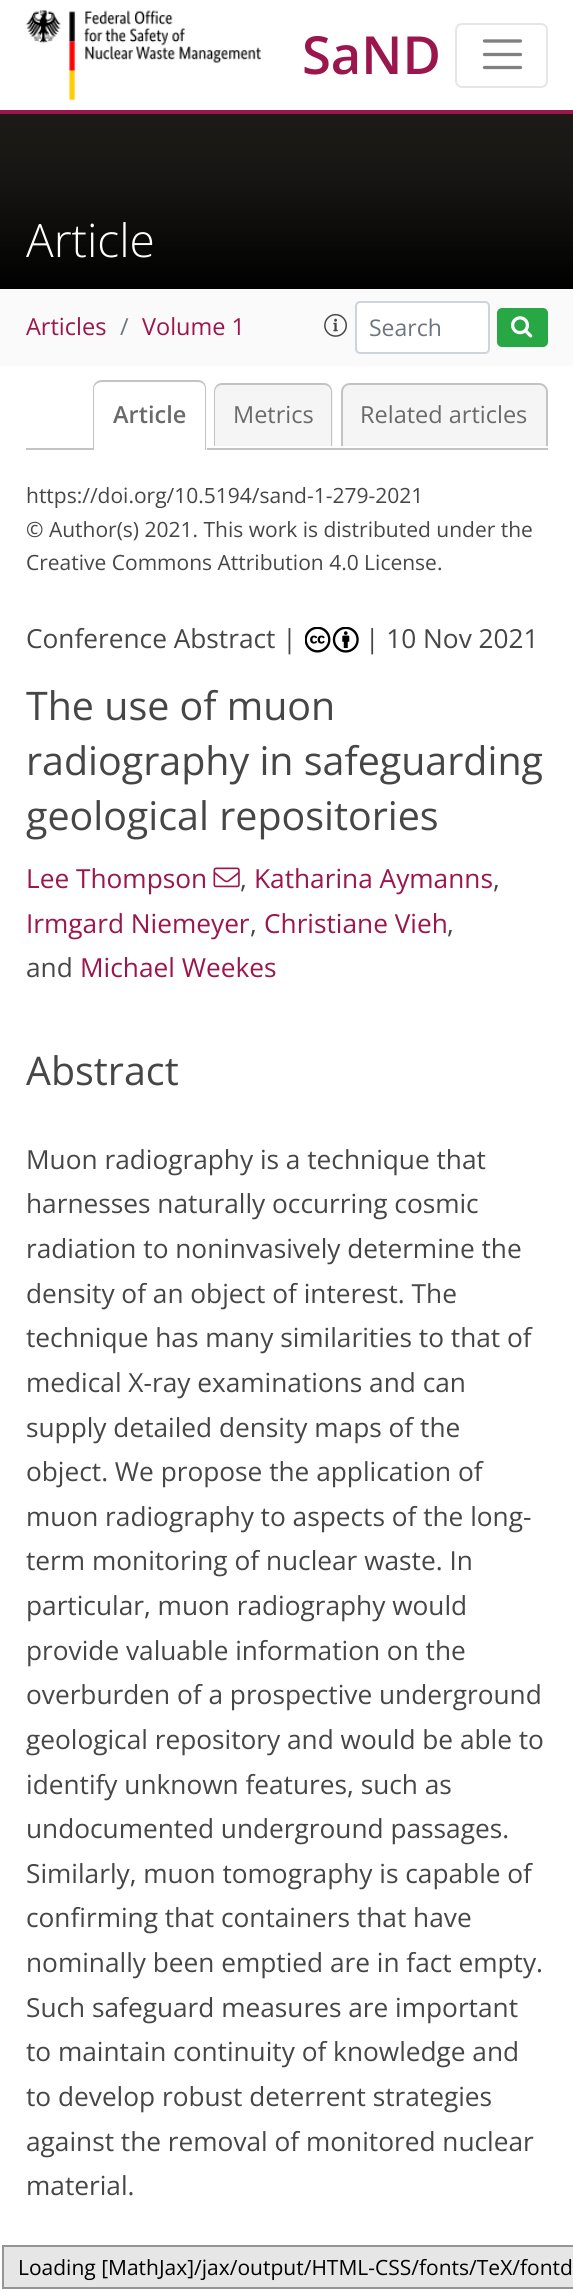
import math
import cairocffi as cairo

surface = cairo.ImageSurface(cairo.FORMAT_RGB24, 573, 2292)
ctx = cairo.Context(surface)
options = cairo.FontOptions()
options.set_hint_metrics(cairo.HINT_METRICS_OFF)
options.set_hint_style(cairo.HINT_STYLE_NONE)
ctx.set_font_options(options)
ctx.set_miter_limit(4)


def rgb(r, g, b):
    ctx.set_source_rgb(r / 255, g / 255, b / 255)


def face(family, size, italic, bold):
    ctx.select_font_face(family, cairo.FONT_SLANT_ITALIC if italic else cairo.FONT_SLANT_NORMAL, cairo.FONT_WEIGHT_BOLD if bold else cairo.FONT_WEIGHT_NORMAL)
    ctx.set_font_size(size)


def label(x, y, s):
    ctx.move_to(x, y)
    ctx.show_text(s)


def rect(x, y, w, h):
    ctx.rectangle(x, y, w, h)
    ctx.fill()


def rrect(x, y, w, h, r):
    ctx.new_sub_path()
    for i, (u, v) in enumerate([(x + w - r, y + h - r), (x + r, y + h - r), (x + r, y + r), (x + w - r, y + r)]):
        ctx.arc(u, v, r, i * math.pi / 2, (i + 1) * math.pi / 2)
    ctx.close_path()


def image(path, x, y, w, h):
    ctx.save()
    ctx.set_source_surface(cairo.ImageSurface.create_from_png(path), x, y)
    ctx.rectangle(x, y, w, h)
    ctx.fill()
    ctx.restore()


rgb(255, 255, 255)
ctx.paint()
image('image0.png', 26, 10, 235, 90)
face('Open Sans SemiBold', 52.5, 0, 0)
rgb(155, 22, 77)
label(302, 74, 'SaND')
rrect(456, 24, 91, 63, 6)
rgb(230, 230, 230)
ctx.stroke()
ctx.new_path()
ctx.move_to(484.5, 41)
ctx.line_to(520.5, 41)
ctx.move_to(484.5, 54.5)
ctx.line_to(520.5, 54.5)
ctx.move_to(484.5, 67.5)
ctx.line_to(520.5, 67.5)
rgb(128, 128, 128)
ctx.set_line_width(3.3)
ctx.set_line_cap(cairo.LINE_CAP_ROUND)
ctx.stroke()
rgb(155, 22, 77)
rect(0, 110, 573, 4)
gradient = cairo.LinearGradient(287, 289, 287, 114)
gradient.add_color_stop_rgba(0, 0, 0, 0, 1)
gradient.add_color_stop_rgba(0.19, 0.027, 0.027, 0.024, 1)
gradient.add_color_stop_rgba(0.34, 0.051, 0.047, 0.043, 1)
gradient.add_color_stop_rgba(0.47, 0.067, 0.063, 0.055, 1)
gradient.add_color_stop_rgba(0.56, 0.078, 0.075, 0.067, 1)
gradient.add_color_stop_rgba(0.65, 0.09, 0.082, 0.075, 1)
gradient.add_color_stop_rgba(0.73, 0.098, 0.09, 0.078, 1)
gradient.add_color_stop_rgba(0.8, 0.102, 0.094, 0.082, 1)
gradient.add_color_stop_rgba(0.86, 0.106, 0.098, 0.086, 1)
gradient.add_color_stop_rgba(0.91, 0.106, 0.098, 0.09, 1)
gradient.add_color_stop_rgba(0.95, 0.11, 0.102, 0.09, 1)
gradient.add_color_stop_rgba(1, 0.11, 0.102, 0.09, 1)
ctx.set_source(gradient)
rect(0, 114, 573, 175)
face('Open Sans Light', 46, 0, 0)
rgb(255, 255, 255)
label(26, 257, 'Article')
rgb(250, 250, 250)
rect(0, 289, 573, 77)
face('Open Sans', 23.5, 0, 0)
rgb(155, 22, 77)
label(26, 335, 'Articles')
rgb(108, 117, 125)
label(120, 335, '/')
rgb(155, 22, 77)
label(142, 335, 'Volume 1')
image('image1.png', 324, 313, 23, 24)
rgb(255, 255, 255)
rrect(356, 302, 133, 51, 4)
ctx.fill_preserve()
rgb(206, 212, 218)
ctx.set_line_width(2)
ctx.set_line_cap(cairo.LINE_CAP_BUTT)
ctx.stroke()
face('Open Sans', 23, 0, 0)
rgb(108, 117, 125)
label(369, 336, 'Search')
rgb(40, 167, 69)
rrect(498, 309, 49, 37, 4)
ctx.fill_preserve()
ctx.stroke()
image('image2.png', 511, 316, 22, 22)
rgb(195, 195, 195)
rect(26, 448, 522, 2)
rgb(255, 255, 255)
ctx.new_path()
ctx.move_to(102, 380)
ctx.line_to(198, 380)
ctx.curve_to(203, 380, 207, 384, 207, 389)
ctx.line_to(207, 450)
ctx.line_to(93, 450)
ctx.line_to(93, 389)
ctx.curve_to(93, 384, 97, 380, 102, 380)
ctx.close_path()
ctx.fill()
rgb(195, 195, 195)
ctx.set_fill_rule(cairo.FILL_RULE_EVEN_ODD)
ctx.new_path()
ctx.move_to(102, 380)
ctx.line_to(198, 380)
ctx.curve_to(203, 380, 206, 384, 206, 388)
ctx.line_to(206, 450)
ctx.line_to(93, 450)
ctx.line_to(93, 388)
ctx.curve_to(93, 384, 97, 380, 102, 380)
ctx.close_path()
ctx.move_to(102, 382)
ctx.line_to(198, 382)
ctx.curve_to(202, 382, 205, 385, 205, 388)
ctx.line_to(205, 450)
ctx.line_to(94, 450)
ctx.line_to(94, 388)
ctx.curve_to(94, 385, 98, 382, 102, 382)
ctx.close_path()
ctx.fill()
face('Open Sans SemiBold', 23.5, 0, 0)
rgb(106, 106, 106)
label(113, 423, 'Article')
rgb(245, 245, 245)
ctx.new_path()
ctx.move_to(223, 383)
ctx.line_to(324, 383)
ctx.curve_to(329, 383, 333, 387, 333, 392)
ctx.line_to(333, 446)
ctx.line_to(214, 446)
ctx.line_to(214, 392)
ctx.curve_to(214, 387, 218, 383, 223, 383)
ctx.close_path()
ctx.fill()
rgb(195, 195, 195)
ctx.new_path()
ctx.move_to(222, 383)
ctx.line_to(324, 383)
ctx.curve_to(329, 383, 332, 387, 332, 392)
ctx.line_to(332, 446)
ctx.line_to(214, 446)
ctx.line_to(214, 392)
ctx.curve_to(214, 387, 217, 383, 222, 383)
ctx.close_path()
ctx.move_to(222, 385)
ctx.line_to(324, 385)
ctx.curve_to(328, 385, 331, 388, 331, 392)
ctx.line_to(331, 446)
ctx.line_to(215, 446)
ctx.line_to(215, 392)
ctx.curve_to(215, 388, 218, 385, 222, 385)
ctx.close_path()
ctx.fill()
face('Open Sans', 23.5, 0, 0)
rgb(106, 106, 106)
label(233, 423, 'Metrics')
rgb(245, 245, 245)
ctx.new_path()
ctx.move_to(350, 383)
ctx.line_to(539, 383)
ctx.curve_to(544, 383, 548, 387, 548, 392)
ctx.line_to(548, 446)
ctx.line_to(341, 446)
ctx.line_to(341, 392)
ctx.curve_to(341, 387, 345, 383, 350, 383)
ctx.close_path()
ctx.fill()
rgb(195, 195, 195)
ctx.new_path()
ctx.move_to(350, 383)
ctx.line_to(539, 383)
ctx.curve_to(544, 383, 548, 387, 548, 392)
ctx.line_to(548, 446)
ctx.line_to(341, 446)
ctx.line_to(341, 392)
ctx.curve_to(341, 387, 345, 383, 350, 383)
ctx.close_path()
ctx.move_to(350, 385)
ctx.line_to(539, 385)
ctx.curve_to(543, 385, 546, 388, 546, 392)
ctx.line_to(546, 446)
ctx.line_to(343, 446)
ctx.line_to(343, 392)
ctx.curve_to(343, 388, 346, 385, 350, 385)
ctx.close_path()
ctx.fill()
rgb(106, 106, 106)
label(360, 423, 'Related articles')
face('Open Sans', 21, 0, 0)
rgb(70, 70, 70)
label(26, 503, 'https://doi.org/10.5194/sand-1-279-2021')
label(26, 537, '© Author(s) 2021. This work is distributed under the')
label(26, 570, 'Creative Commons Attribution 4.0 License.')
face('Open Sans', 26.25, 0, 0)
label(26, 648, 'Conference Abstract |')
image('image3.png', 305, 627, 54, 26)
label(365, 648, '| 10 Nov 2021')
face('Open Sans', 39.4, 0, 0)
label(26, 720, 'The use of muon')
label(26, 775, 'radiography in safeguarding')
label(26, 830, 'geological repositories')
face('Open Sans', 26.25, 0, 0)
rgb(155, 22, 77)
label(26, 888, 'Lee Thompson')
image('image4.png', 213, 867, 27, 21)
rgb(70, 70, 70)
label(240, 888, ',')
rgb(155, 22, 77)
label(254, 888, 'Katharina Aymanns')
rgb(70, 70, 70)
label(493, 888, ',')
rgb(155, 22, 77)
label(26, 933, 'Irmgard Niemeyer')
rgb(70, 70, 70)
label(250, 933, ',')
rgb(155, 22, 77)
label(264, 933, 'Christiane Vieh')
rgb(70, 70, 70)
label(447, 933, ',')
label(26, 977, 'and')
rgb(155, 22, 77)
label(80, 977, 'Michael Weekes')
face('Open Sans', 39.4, 0, 0)
rgb(70, 70, 70)
label(26, 1085, 'Abstract')
face('Open Sans', 26.25, 0, 0)
label(26, 1169, 'Muon radiography is a technique that')
label(26, 1213, 'harnesses naturally occurring cosmic')
label(26, 1258, 'radiation to noninvasively determine the')
label(26, 1303, 'density of an object of interest. The')
label(26, 1347, 'technique has many similarities to that of')
label(26, 1392, 'medical X-ray examinations and can')
label(26, 1437, 'supply detailed density maps of the')
label(26, 1481, 'object. We propose the application of')
label(26, 1526, 'muon radiography to aspects of the long-')
label(26, 1570, 'term monitoring of nuclear waste. In')
label(26, 1615, 'particular, muon radiography would')
label(26, 1660, 'provide valuable information on the')
label(26, 1704, 'overburden of a prospective underground')
label(26, 1749, 'geological repository and would be able to')
label(26, 1794, 'identify unknown features, such as')
label(26, 1838, 'undocumented underground passages.')
label(26, 1883, 'Similarly, muon tomography is capable of')
label(26, 1927, 'confirming that containers that have')
label(26, 1972, 'nominally been emptied are in fact empty.')
label(26, 2017, 'Such safeguard measures are important')
label(26, 2061, 'to maintain continuity of knowledge and')
label(26, 2106, 'to develop robust deterrent strategies')
label(26, 2151, 'against the removal of monitored nuclear')
label(26, 2195, 'material.')
rgb(230, 230, 230)
ctx.rectangle(3, 2246, 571, 42)
ctx.fill_preserve()
rgb(149, 149, 149)
ctx.stroke()
face('Open Sans', 21, 0, 0)
rgb(0, 0, 0)
label(18, 2275, 'Loading [MathJax]/jax/output/HTML-CSS/fonts/TeX/fontd')
surface.write_to_png('render.png')
